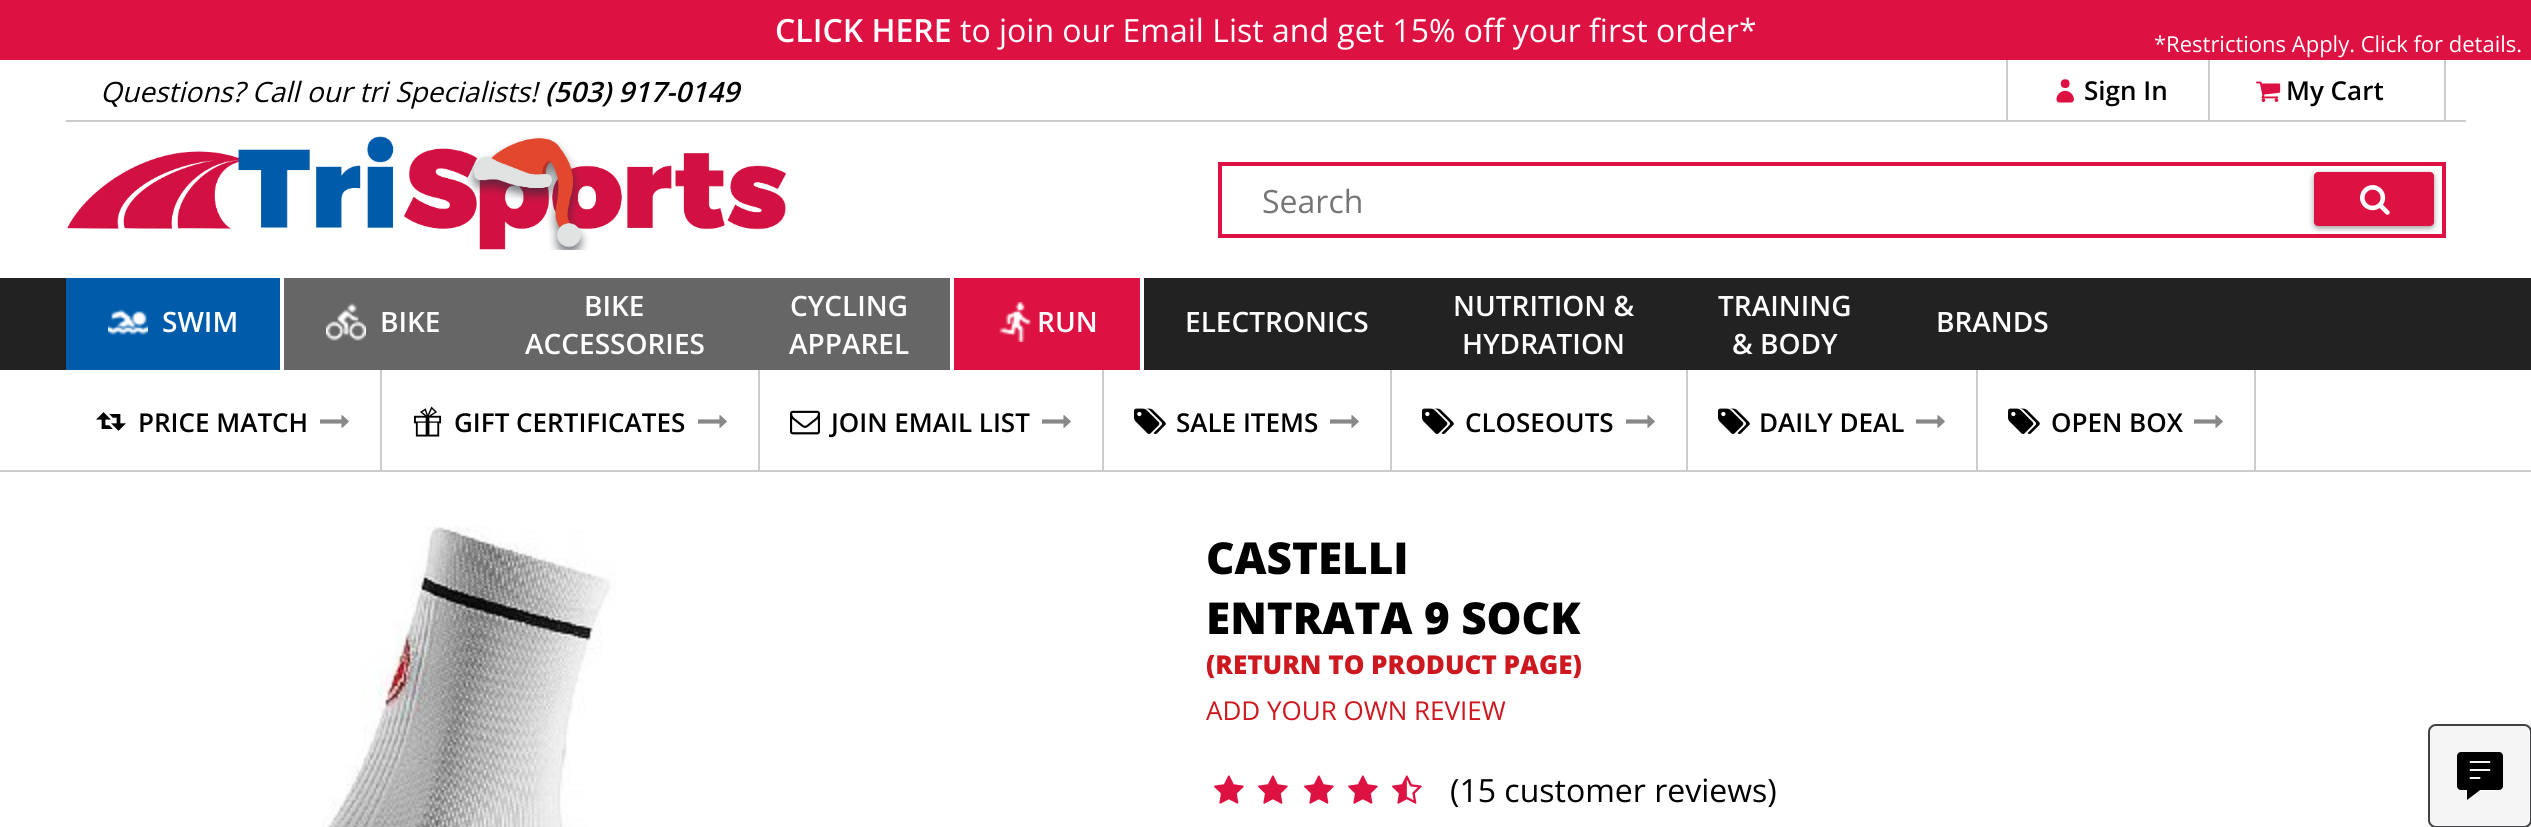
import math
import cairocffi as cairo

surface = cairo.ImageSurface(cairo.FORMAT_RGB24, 2531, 827)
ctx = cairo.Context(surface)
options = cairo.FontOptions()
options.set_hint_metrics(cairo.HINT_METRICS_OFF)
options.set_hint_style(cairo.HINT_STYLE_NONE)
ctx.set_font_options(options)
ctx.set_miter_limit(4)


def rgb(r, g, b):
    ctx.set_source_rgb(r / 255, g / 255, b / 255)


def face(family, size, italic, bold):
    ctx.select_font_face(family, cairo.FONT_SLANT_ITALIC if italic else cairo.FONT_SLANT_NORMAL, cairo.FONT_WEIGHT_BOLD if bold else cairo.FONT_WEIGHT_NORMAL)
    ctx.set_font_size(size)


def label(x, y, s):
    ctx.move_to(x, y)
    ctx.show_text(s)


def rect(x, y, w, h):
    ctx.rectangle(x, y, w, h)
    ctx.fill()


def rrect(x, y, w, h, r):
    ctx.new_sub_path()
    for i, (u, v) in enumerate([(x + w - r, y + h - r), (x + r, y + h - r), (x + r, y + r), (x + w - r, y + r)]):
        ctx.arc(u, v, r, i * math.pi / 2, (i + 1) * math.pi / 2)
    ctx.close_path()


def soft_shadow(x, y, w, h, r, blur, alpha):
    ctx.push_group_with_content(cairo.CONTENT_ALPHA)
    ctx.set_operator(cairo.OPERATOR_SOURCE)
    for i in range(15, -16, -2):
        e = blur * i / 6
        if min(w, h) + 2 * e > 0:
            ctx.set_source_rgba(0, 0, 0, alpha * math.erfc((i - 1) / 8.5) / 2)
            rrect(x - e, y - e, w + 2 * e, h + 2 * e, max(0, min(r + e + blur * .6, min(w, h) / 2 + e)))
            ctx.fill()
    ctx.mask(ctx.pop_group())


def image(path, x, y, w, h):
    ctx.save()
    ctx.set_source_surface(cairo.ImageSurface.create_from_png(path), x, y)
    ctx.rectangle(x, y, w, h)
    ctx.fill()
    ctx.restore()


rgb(255, 255, 255)
ctx.paint()
rgb(221, 18, 66)
rect(0, 0, 2531, 60)
face('Open Sans SemiBold', 32, 0, 0)
rgb(255, 255, 255)
label(775, 42, 'CLICK HERE')
face('Open Sans', 32, 0, 0)
label(960, 42, 'to join our Email List and get 15% off your first order*')
face('Open Sans', 22, 0, 0)
label(2154, 52, '*Restrictions Apply. Click for details.')
rgb(204, 204, 204)
rect(66, 120, 2400, 2)
face('Open Sans', 28, 1, 0)
rgb(0, 0, 0)
label(100, 102, 'Questions? Call our tri Specialists!')
face('Open Sans SemiBold', 28, 1, 0)
label(545, 102, '(503) 917-0149')
rgb(204, 204, 204)
rect(2006, 60, 2, 60)
rect(2208, 60, 2, 60)
image('image0.png', 2056, 79, 18, 24)
face('Open Sans SemiBold', 26, 0, 0)
rgb(0, 0, 0)
label(2084, 100, 'Sign In')
rgb(204, 204, 204)
rect(2444, 60, 2, 60)
image('image1.png', 2256, 81, 25, 21)
rgb(0, 0, 0)
label(2286, 100, 'My Cart')
image('image2.png', 67, 136, 719, 114)
ctx.rectangle(1220, 164, 1224, 72)
rgb(221, 18, 66)
ctx.set_line_width(4)
ctx.stroke()
face('Open Sans', 32, 0, 0)
rgb(117, 117, 117)
label(1262, 213, 'Search')
rgb(0, 0, 0)
soft_shadow(2314, 174, 120, 54, 4, 3, 0.4)
rgb(221, 18, 66)
rrect(2314, 172, 120, 54, 4)
ctx.fill()
image('image3.png', 2360, 185, 30, 30)
rgb(34, 34, 34)
rect(0, 278, 2531, 92)
rgb(0, 92, 171)
rect(66, 278, 214, 92)
rgb(255, 255, 255)
rect(280, 274, 4, 96)
image('image4.png', 108, 309, 40, 26)
face('Open Sans SemiBold', 28, 0, 0)
label(162, 332, 'SWIM')
rgb(102, 102, 102)
rect(284, 278, 666, 92)
image('image5.png', 326, 303, 40, 38)
rgb(255, 255, 255)
label(380, 332, 'BIKE')
label(584, 316, 'BIKE')
label(525, 354, 'ACCESSORIES')
label(790, 316, 'CYCLING')
label(789, 354, 'APPAREL')
rgb(221, 18, 66)
rect(954, 278, 186, 92)
rgb(255, 255, 255)
rect(1140, 274, 4, 96)
rect(950, 274, 4, 96)
image('image6.png', 999, 302, 32, 40)
label(1037, 332, 'RUN')
label(1185, 332, 'ELECTRONICS')
label(1453, 316, 'NUTRITION &')
label(1462, 354, 'HYDRATION')
label(1718, 316, 'TRAINING')
label(1732, 354, '& BODY')
label(1936, 332, 'BRANDS')
rgb(204, 204, 204)
rect(0, 470, 2531, 2)
rect(380, 370, 2, 100)
image('image7.png', 96, 412, 30, 19)
face('Open Sans SemiBold', 26, 0, 0)
rgb(0, 0, 0)
label(138, 432, 'PRICE MATCH')
image('image8.png', 320, 415, 29, 13)
rgb(204, 204, 204)
rect(758, 370, 2, 100)
image('image9.png', 414, 406, 28, 31)
rgb(0, 0, 0)
label(454, 432, 'GIFT CERTIFICATES')
image('image8.png', 698, 415, 29, 13)
rgb(204, 204, 204)
rect(1102, 370, 2, 100)
image('image10.png', 790, 410, 30, 25)
rgb(0, 0, 0)
label(831, 432, 'JOIN EMAIL LIST')
image('image8.png', 1042, 415, 29, 13)
rgb(204, 204, 204)
rect(1390, 370, 2, 100)
image('image11.png', 1134, 408, 32, 26)
rgb(0, 0, 0)
label(1176, 432, 'SALE ITEMS')
image('image8.png', 1330, 415, 29, 13)
rgb(204, 204, 204)
rect(1686, 370, 2, 100)
image('image11.png', 1422, 408, 32, 26)
rgb(0, 0, 0)
label(1465, 432, 'CLOSEOUTS')
image('image8.png', 1626, 415, 29, 13)
rgb(204, 204, 204)
rect(1976, 370, 2, 100)
image('image11.png', 1718, 408, 32, 26)
rgb(0, 0, 0)
label(1759, 432, 'DAILY DEAL')
image('image8.png', 1916, 415, 29, 13)
rgb(204, 204, 204)
rect(2254, 370, 2, 100)
image('image11.png', 2008, 408, 32, 26)
rgb(0, 0, 0)
label(2051, 432, 'OPEN BOX')
image('image8.png', 2194, 415, 29, 13)
image('image12.png', 322, 526, 294, 301)
face('Open Sans ExtraBold', 44, 0, 0)
label(1206, 574, 'CASTELLI')
label(1206, 634, 'ENTRATA 9 SOCK')
face('Open Sans ExtraBold', 26, 0, 0)
rgb(204, 24, 30)
label(1206, 674, '(RETURN TO PRODUCT PAGE)')
face('Open Sans', 26, 0, 0)
label(1206, 720, 'ADD YOUR OWN REVIEW')
image('image13.png', 1214, 775, 30, 29)
image('image13.png', 1258, 775, 30, 29)
image('image13.png', 1304, 775, 30, 29)
image('image13.png', 1348, 775, 30, 29)
image('image14.png', 1392, 775, 30, 29)
face('Open Sans', 32, 0, 0)
rgb(0, 0, 0)
label(1450, 802, '(15 customer reviews)')
rgb(245, 245, 245)
rrect(2429, 725, 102, 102, 7)
ctx.fill_preserve()
rgb(65, 64, 66)
ctx.set_line_width(2)
ctx.stroke()
image('image15.png', 2457, 752, 46, 48)
surface.write_to_png('render.png')
